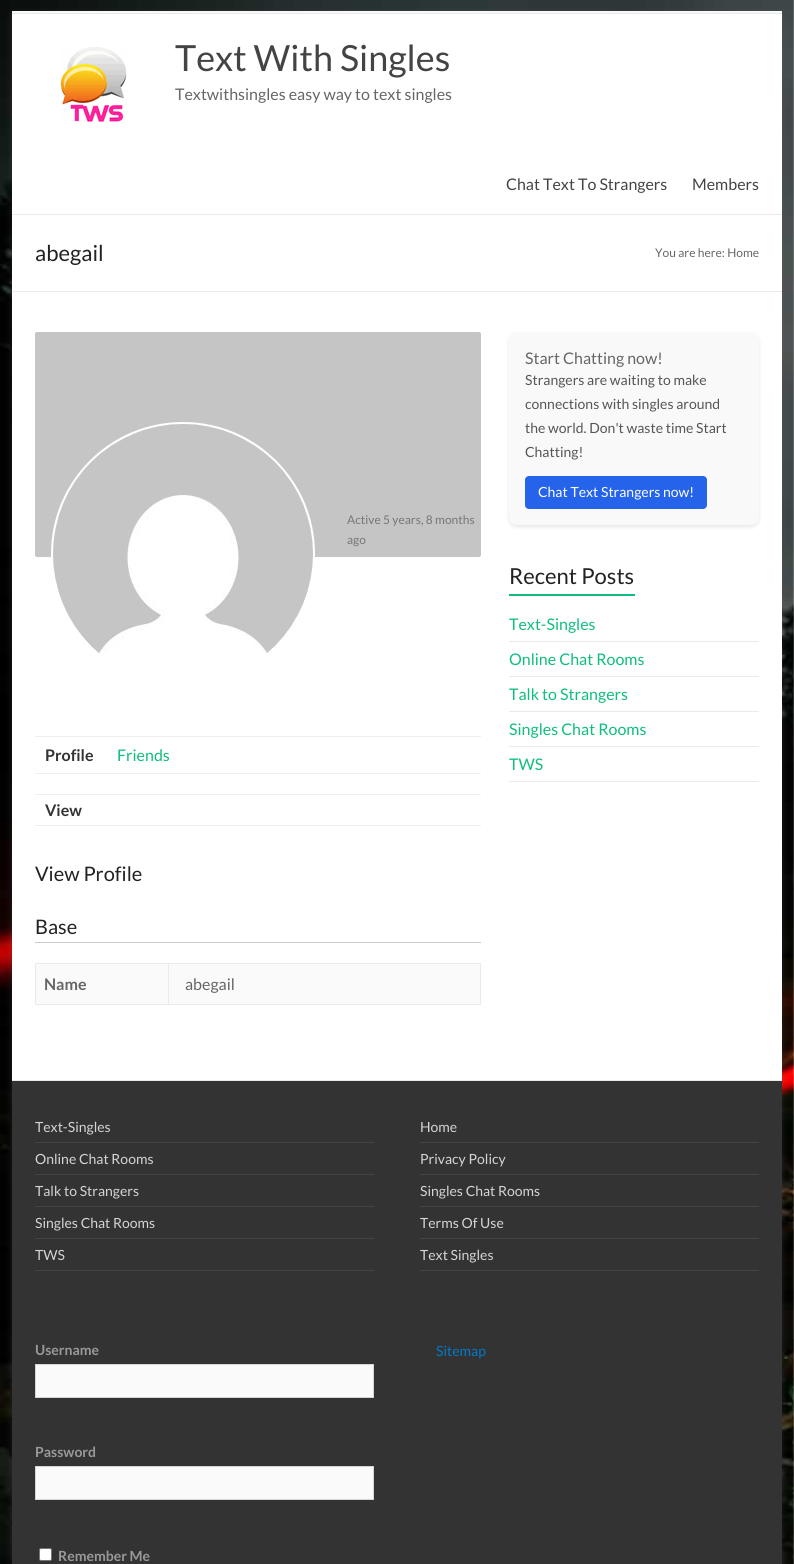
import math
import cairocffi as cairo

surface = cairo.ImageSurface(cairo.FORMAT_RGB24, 794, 1564)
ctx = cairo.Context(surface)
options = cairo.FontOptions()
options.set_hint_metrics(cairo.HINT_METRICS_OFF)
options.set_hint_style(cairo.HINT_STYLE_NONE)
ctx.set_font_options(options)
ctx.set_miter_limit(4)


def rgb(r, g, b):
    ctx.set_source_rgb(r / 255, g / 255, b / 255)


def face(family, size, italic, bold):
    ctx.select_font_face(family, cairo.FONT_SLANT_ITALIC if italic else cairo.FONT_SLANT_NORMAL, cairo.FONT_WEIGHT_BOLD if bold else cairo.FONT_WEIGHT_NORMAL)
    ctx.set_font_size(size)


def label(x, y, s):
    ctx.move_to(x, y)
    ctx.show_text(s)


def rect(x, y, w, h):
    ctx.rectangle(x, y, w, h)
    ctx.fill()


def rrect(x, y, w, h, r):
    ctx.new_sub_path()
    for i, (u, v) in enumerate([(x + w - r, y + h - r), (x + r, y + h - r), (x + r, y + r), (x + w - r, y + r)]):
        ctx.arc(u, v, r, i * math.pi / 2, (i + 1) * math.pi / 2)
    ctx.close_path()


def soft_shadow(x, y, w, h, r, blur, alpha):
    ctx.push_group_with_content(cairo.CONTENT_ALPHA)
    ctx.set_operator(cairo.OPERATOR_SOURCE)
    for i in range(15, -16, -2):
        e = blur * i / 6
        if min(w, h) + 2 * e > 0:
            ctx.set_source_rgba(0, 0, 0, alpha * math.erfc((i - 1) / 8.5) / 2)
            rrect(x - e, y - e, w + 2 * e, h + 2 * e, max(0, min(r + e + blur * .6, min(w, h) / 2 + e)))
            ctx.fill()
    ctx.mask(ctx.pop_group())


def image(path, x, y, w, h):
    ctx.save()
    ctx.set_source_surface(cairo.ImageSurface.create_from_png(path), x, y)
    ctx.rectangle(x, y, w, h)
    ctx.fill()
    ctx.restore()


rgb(255, 255, 255)
ctx.paint()
image('image0.png', 0, 0, 794, 1564)
rgb(100, 100, 100)
soft_shadow(12, 13, 770, 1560, 0, 3, 0.3)
rgb(255, 255, 255)
rect(12, 14, 770, 1066)
rgb(248, 248, 248)
rect(12, 11, 770, 2)
rgb(234, 234, 234)
rect(12, 13, 770, 1)
rect(12, 214, 770, 1)
image('image1.png', 60, 47, 67, 75)
face('Lato', 36, 0, 0)
rgb(68, 68, 68)
label(175, 71, 'Text With Singles')
face('Lato', 16, 0, 0)
rgb(102, 102, 102)
label(175, 100, 'Textwithsingles easy way to text singles')
rgb(68, 68, 68)
label(506, 190, 'Chat Text To Strangers')
label(692, 190, 'Members')
rgb(234, 234, 234)
rect(12, 291, 770, 1)
face('Lato', 22, 0, 0)
rgb(34, 34, 34)
label(35, 261, 'abegail')
face('Lato', 12, 0, 0)
rgb(102, 102, 102)
label(655, 257, 'You are here: Home')
rgb(197, 197, 197)
rrect(35, 332, 446, 225, 2)
ctx.fill()
ctx.set_source_rgba(1, 1, 1, 0.8)
ctx.arc(183, 554, 131, 0, 2 * math.pi)
ctx.fill_preserve()
rgb(255, 255, 255)
ctx.stroke()
image('image2.png', 53, 424, 260, 229)
rgb(118, 118, 118)
label(347, 524, 'Active 5 years, 8 months')
label(347, 544, 'ago')
rgb(238, 238, 238)
rect(35, 736, 446, 1)
rect(35, 773, 446, 1)
face('Lato', 16, 0, 1)
rgb(51, 51, 51)
label(45, 761, 'Profile')
face('Lato', 16, 0, 0)
rgb(15, 190, 124)
label(117, 761, 'Friends')
rgb(238, 238, 238)
rect(35, 794, 446, 1)
rect(35, 825, 446, 1)
face('Lato', 16, 0, 1)
rgb(51, 51, 51)
label(45, 816, 'View')
face('Lato', 20, 0, 0)
rgb(34, 34, 34)
label(35, 881, 'View Profile')
rgb(204, 204, 204)
rect(35, 942, 446, 1)
rgb(34, 34, 34)
label(35, 934, 'Base')
rgb(250, 250, 250)
rect(36, 964, 444, 40)
rgb(234, 234, 234)
rect(168, 963, 313, 1)
rect(480, 963, 1, 42)
rect(168, 1004, 313, 1)
rect(168, 963, 1, 42)
rect(35, 963, 134, 1)
rect(35, 1004, 134, 1)
rect(35, 963, 1, 42)
face('Lato', 16, 0, 1)
rgb(102, 102, 102)
label(44, 990, 'Name')
face('Lato', 16, 0, 0)
label(185, 990, 'abegail')
rgb(0, 0, 0)
soft_shadow(509, 334, 250, 193, 8, 2, 0.1)
rgb(249, 249, 249)
rrect(509, 332, 250, 193, 8)
ctx.fill()
rgb(102, 102, 102)
label(525, 364, 'Start Chatting now!')
face('Lato', 14, 0, 0)
rgb(85, 85, 85)
label(525, 385, 'Strangers are waiting to make')
label(525, 409, 'connections with singles around')
label(525, 433, 'the world. Don\'t waste time Start')
label(525, 457, 'Chatting!')
rgb(37, 99, 235)
rrect(525, 476, 182, 33, 4)
ctx.fill()
rgb(255, 255, 255)
label(538, 497, 'Chat Text Strangers now!')
face('Lato', 22, 0, 0)
rgb(34, 34, 34)
label(509, 584, 'Recent Posts')
rgb(15, 190, 124)
rect(509, 594, 126, 2)
rgb(234, 234, 234)
rect(509, 641, 250, 1)
face('Lato', 16, 0, 0)
rgb(15, 190, 124)
label(509, 630, 'Text-Singles')
rgb(234, 234, 234)
rect(509, 676, 250, 1)
rgb(15, 190, 124)
label(509, 665, 'Online Chat Rooms')
rgb(234, 234, 234)
rect(509, 711, 250, 1)
rgb(15, 190, 124)
label(509, 700, 'Talk to Strangers')
rgb(234, 234, 234)
rect(509, 746, 250, 1)
rgb(15, 190, 124)
label(509, 735, 'Singles Chat Rooms')
rgb(234, 234, 234)
rect(509, 781, 250, 1)
rgb(15, 190, 124)
label(509, 770, 'TWS')
rgb(51, 51, 51)
rect(12, 1081, 770, 483)
rgb(234, 234, 234)
rect(12, 1080, 770, 1)
rgb(68, 68, 68)
rect(35, 1142, 339, 1)
face('Lato', 14, 0, 0)
rgb(213, 213, 213)
label(35, 1132, 'Text-Singles')
rgb(68, 68, 68)
rect(35, 1174, 339, 1)
rgb(213, 213, 213)
label(35, 1164, 'Online Chat Rooms')
rgb(68, 68, 68)
rect(35, 1206, 339, 1)
rgb(213, 213, 213)
label(35, 1196, 'Talk to Strangers')
rgb(68, 68, 68)
rect(35, 1238, 339, 1)
rgb(213, 213, 213)
label(35, 1228, 'Singles Chat Rooms')
rgb(68, 68, 68)
rect(35, 1270, 339, 1)
rgb(213, 213, 213)
label(35, 1260, 'TWS')
rgb(68, 68, 68)
rect(420, 1142, 339, 1)
rgb(213, 213, 213)
label(420, 1132, 'Home')
rgb(68, 68, 68)
rect(420, 1174, 339, 1)
rgb(213, 213, 213)
label(420, 1164, 'Privacy Policy')
rgb(68, 68, 68)
rect(420, 1206, 339, 1)
rgb(213, 213, 213)
label(420, 1196, 'Singles Chat Rooms')
rgb(68, 68, 68)
rect(420, 1238, 339, 1)
rgb(213, 213, 213)
label(420, 1228, 'Terms Of Use')
rgb(68, 68, 68)
rect(420, 1270, 339, 1)
rgb(213, 213, 213)
label(420, 1260, 'Text Singles')
face('Lato', 14, 0, 1)
rgb(153, 153, 153)
label(35, 1355, 'Username')
rgb(250, 250, 250)
ctx.rectangle(35.5, 1364.5, 338, 33)
ctx.fill_preserve()
rgb(214, 214, 214)
ctx.set_line_width(1)
ctx.stroke()
rgb(153, 153, 153)
label(35, 1457, 'Password')
rgb(250, 250, 250)
ctx.rectangle(35.5, 1466.5, 338, 33)
ctx.fill_preserve()
rgb(214, 214, 214)
ctx.stroke()
rgb(255, 255, 255)
rrect(39.5, 1548.5, 12, 12, 1.5)
ctx.fill_preserve()
rgb(118, 118, 118)
ctx.stroke()
rgb(153, 153, 153)
label(58, 1561, 'Remember Me')
face('Lato', 14, 0, 0)
rgb(0, 122, 204)
label(436, 1356, 'Sitemap')
surface.write_to_png('render.png')
